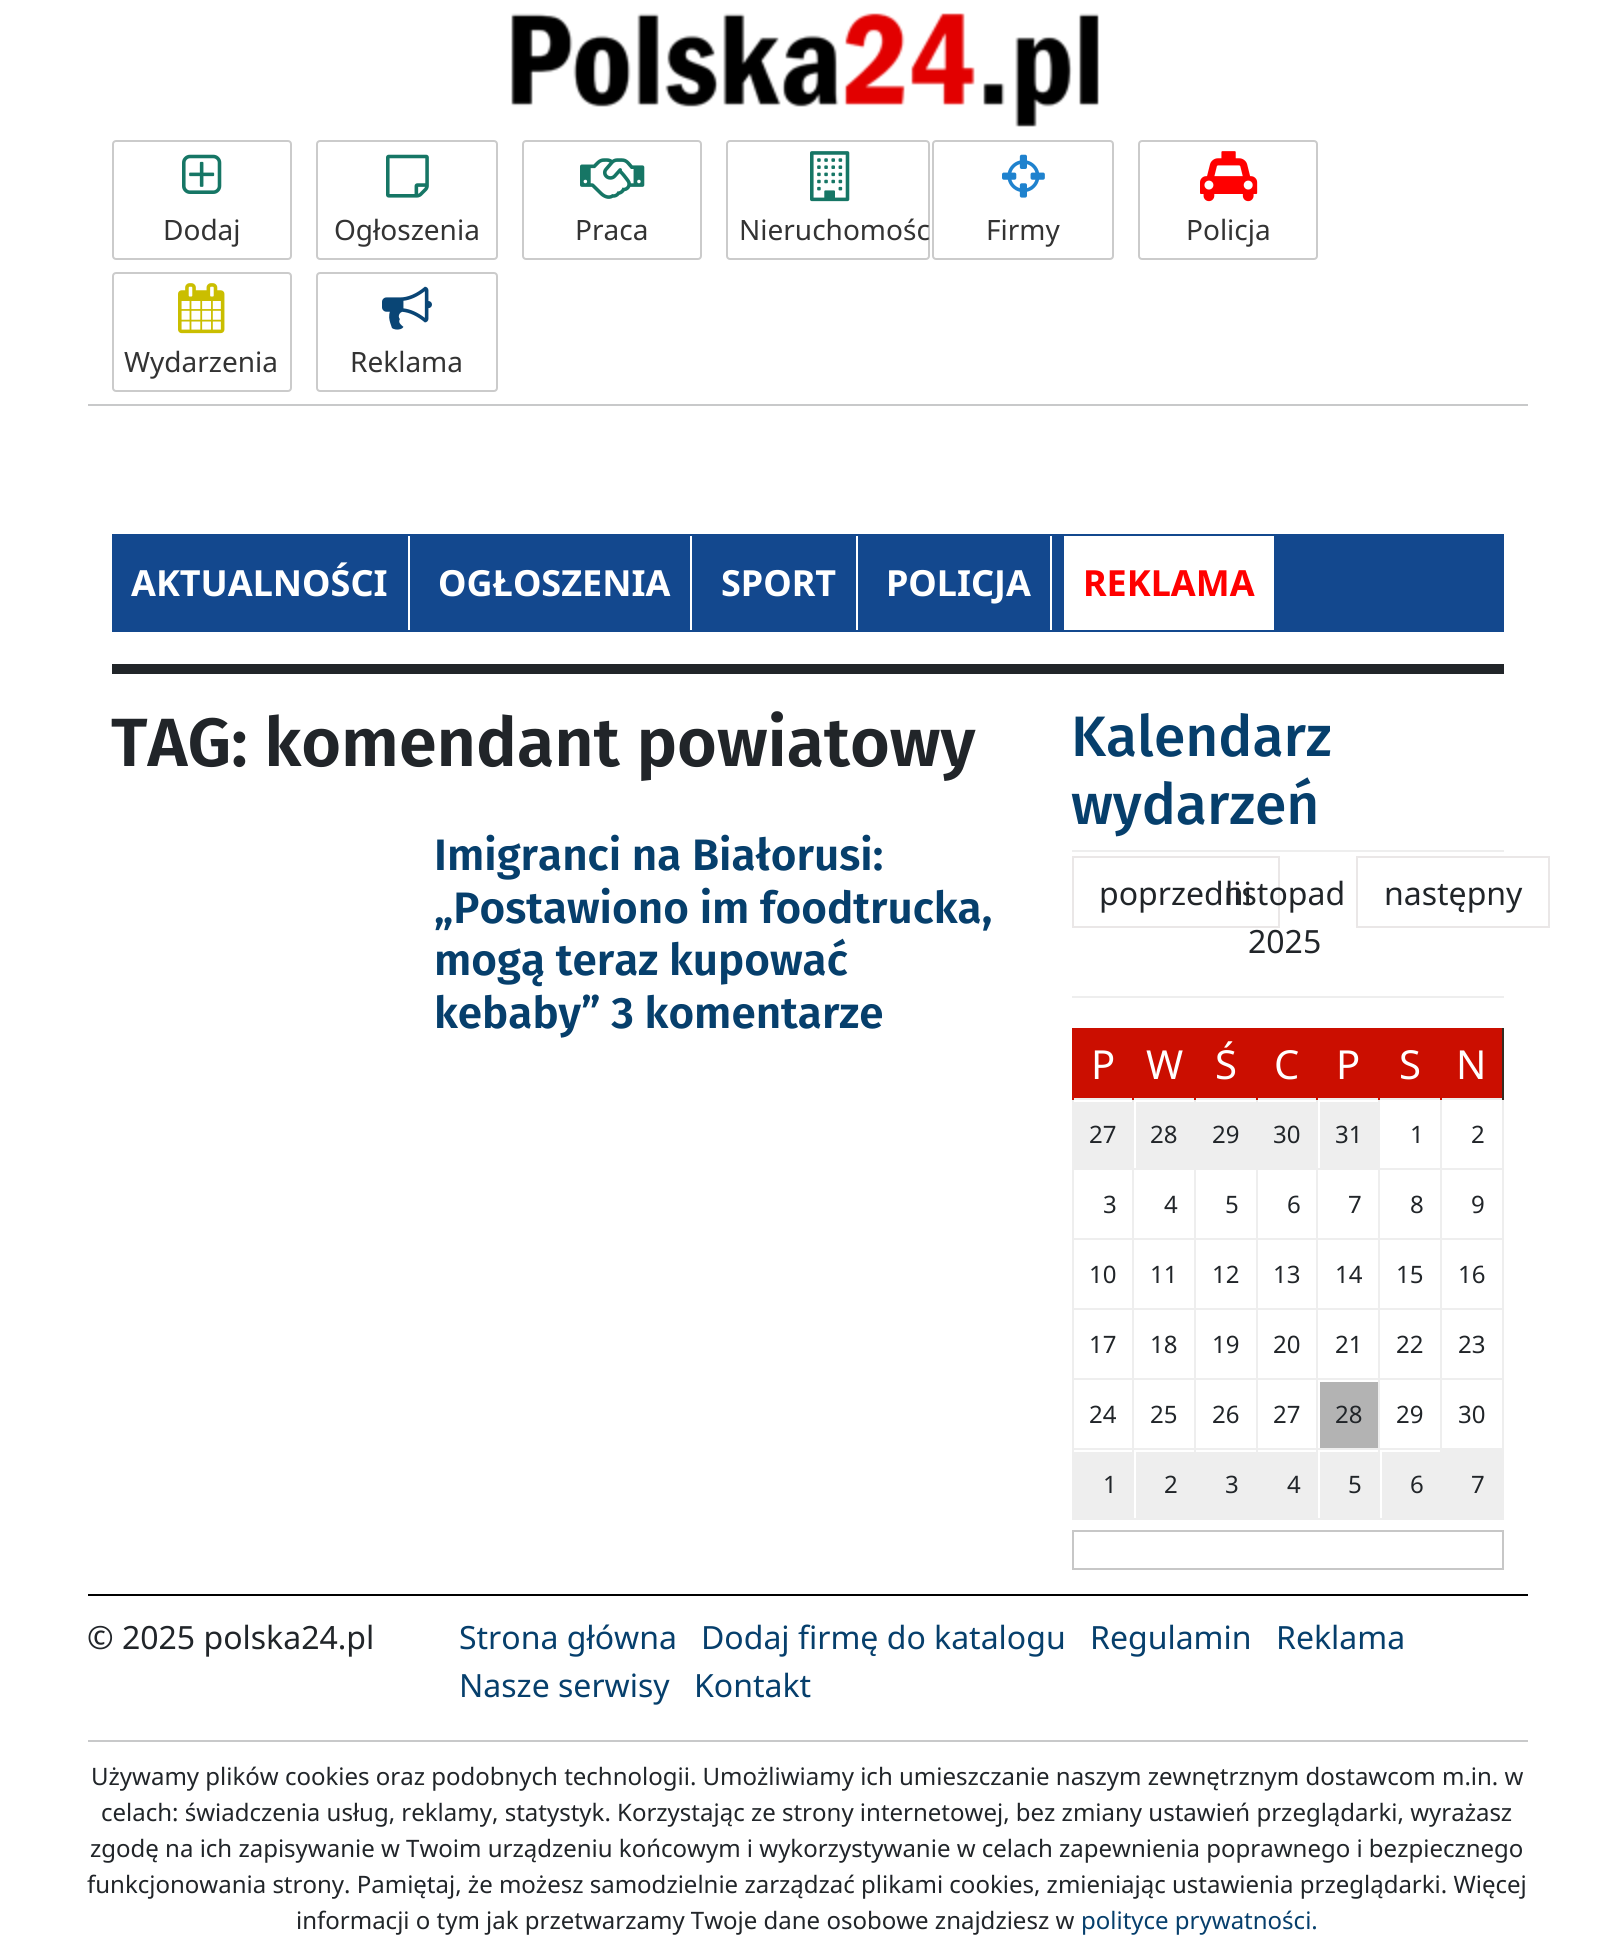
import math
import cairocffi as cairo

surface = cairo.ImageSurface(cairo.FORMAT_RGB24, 1613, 1951)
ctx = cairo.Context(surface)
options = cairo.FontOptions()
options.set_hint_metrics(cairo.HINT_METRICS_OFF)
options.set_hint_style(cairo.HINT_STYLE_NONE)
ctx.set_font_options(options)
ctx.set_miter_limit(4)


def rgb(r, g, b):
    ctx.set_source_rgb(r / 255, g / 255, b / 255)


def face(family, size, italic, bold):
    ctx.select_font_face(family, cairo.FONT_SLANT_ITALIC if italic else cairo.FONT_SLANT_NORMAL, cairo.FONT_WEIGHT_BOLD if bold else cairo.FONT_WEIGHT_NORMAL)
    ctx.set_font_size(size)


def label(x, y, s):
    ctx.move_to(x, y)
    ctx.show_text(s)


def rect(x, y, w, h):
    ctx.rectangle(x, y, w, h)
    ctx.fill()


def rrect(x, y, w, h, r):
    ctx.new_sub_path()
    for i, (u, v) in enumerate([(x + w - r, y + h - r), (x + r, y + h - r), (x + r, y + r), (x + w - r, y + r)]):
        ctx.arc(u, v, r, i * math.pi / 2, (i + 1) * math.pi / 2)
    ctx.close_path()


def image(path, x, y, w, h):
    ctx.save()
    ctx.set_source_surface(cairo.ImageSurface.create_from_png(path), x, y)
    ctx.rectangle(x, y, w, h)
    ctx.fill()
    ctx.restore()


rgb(255, 255, 255)
ctx.paint()
image('image0.png', 511, 13, 588, 114)
rrect(113, 141, 178, 118, 3)
rgb(203, 203, 203)
ctx.stroke()
image('image1.png', 182, 154, 40, 40)
face('Noto Sans', 28, 0, 0)
rgb(51, 51, 51)
label(163, 240, 'Dodaj')
rrect(317, 141, 180, 118, 3)
rgb(203, 203, 203)
ctx.stroke()
image('image2.png', 386, 154, 43, 44)
rgb(51, 51, 51)
label(334, 240, 'Ogłoszenia')
rrect(523, 141, 178, 118, 3)
rgb(203, 203, 203)
ctx.stroke()
image('image3.png', 580, 158, 65, 41)
rgb(51, 51, 51)
label(575, 240, 'Praca')
rrect(727, 141, 202, 118, 3)
rgb(203, 203, 203)
ctx.stroke()
image('image4.png', 810, 151, 40, 51)
rgb(51, 51, 51)
label(739, 240, 'Nieruchomośc')
rrect(933, 141, 180, 118, 3)
rgb(203, 203, 203)
ctx.stroke()
image('image5.png', 1002, 154, 43, 44)
rgb(51, 51, 51)
label(986, 240, 'Firmy')
rrect(1139, 141, 178, 118, 3)
rgb(203, 203, 203)
ctx.stroke()
image('image6.png', 1200, 151, 58, 51)
rgb(51, 51, 51)
label(1186, 240, 'Policja')
rrect(113, 273, 178, 118, 3)
rgb(203, 203, 203)
ctx.stroke()
image('image7.png', 178, 283, 47, 51)
rgb(51, 51, 51)
label(124, 372, 'Wydarzenia')
rrect(317, 273, 180, 118, 3)
rgb(203, 203, 203)
ctx.stroke()
image('image8.png', 382, 286, 50, 44)
rgb(51, 51, 51)
label(350, 372, 'Reklama')
rgb(200, 201, 202)
rect(88, 404, 1440, 2)
rgb(19, 72, 142)
rect(112, 534, 1392, 98)
rgb(255, 255, 255)
rect(408, 536, 2, 94)
face('Noto Sans', 36, 0, 1)
label(131, 596, 'AKTUALNOŚCI')
rect(690, 536, 2, 94)
label(438, 596, 'OGŁOSZENIA')
rect(856, 536, 2, 94)
label(721, 596, 'SPORT')
rect(1050, 536, 2, 94)
label(886, 596, 'POLICJA')
rect(1064, 536, 210, 94)
rgb(255, 0, 0)
label(1083, 596, 'REKLAMA')
rgb(33, 37, 41)
rect(112, 664, 1392, 10)
face('Fira Sans SemiBold', 68.25, 0, 0)
label(111, 766, 'TAG: komendant powiatowy')
face('Fira Sans SemiBold', 44, 0, 0)
rgb(6, 63, 108)
label(434, 870, 'Imigranci na Białorusi:')
label(434, 923, '„Postawiono im foodtrucka,')
label(434, 975, 'mogą teraz kupować')
label(434, 1028, 'kebaby” 3 komentarze')
rgb(238, 238, 238)
rect(1072, 850, 432, 2)
face('Fira Sans Medium', 57, 0, 0)
rgb(6, 63, 108)
label(1071, 756, 'Kalendarz')
label(1071, 824, 'wydarzeń')
rgb(238, 238, 238)
rect(1072, 996, 432, 2)
ctx.rectangle(1073, 857, 206, 70)
rgb(234, 231, 231)
ctx.stroke()
face('Noto Sans', 32, 0, 0)
rgb(33, 37, 41)
label(1099, 905, 'poprzedni')
label(1225, 905, 'listopad')
label(1248, 953, '2025')
ctx.rectangle(1357, 857, 192, 70)
rgb(234, 231, 231)
ctx.stroke()
rgb(33, 37, 41)
label(1384, 905, 'następny')
rgb(203, 14, 0)
rect(1074, 1030, 428, 68)
rect(1072, 1028, 432, 2)
rgb(238, 238, 238)
rect(1440, 1098, 64, 2)
rect(1440, 1168, 64, 2)
rect(1440, 1238, 64, 2)
rect(1440, 1308, 64, 2)
rect(1440, 1378, 64, 2)
rect(1378, 1448, 126, 2)
rect(1440, 1378, 2, 72)
rect(1378, 1378, 64, 2)
rect(1440, 1308, 2, 72)
rect(1378, 1308, 64, 2)
rect(1440, 1238, 2, 72)
rect(1378, 1238, 64, 2)
rect(1440, 1168, 2, 72)
rect(1378, 1168, 64, 2)
rect(1440, 1098, 2, 72)
rect(1378, 1098, 64, 2)
rect(1440, 1450, 62, 70)
rect(1378, 1518, 64, 2)
rect(1378, 1448, 2, 72)
rect(1316, 1448, 64, 2)
rect(1378, 1378, 2, 72)
rect(1316, 1378, 64, 2)
rect(1378, 1308, 2, 72)
rect(1316, 1308, 64, 2)
rect(1378, 1238, 2, 72)
rect(1316, 1238, 64, 2)
rect(1378, 1168, 2, 72)
rect(1316, 1168, 64, 2)
rect(1378, 1098, 2, 72)
rect(1316, 1098, 64, 2)
rect(1316, 1518, 64, 2)
rect(1316, 1448, 2, 72)
rect(1256, 1448, 62, 2)
rect(1316, 1378, 2, 72)
rect(1256, 1378, 62, 2)
rect(1316, 1308, 2, 72)
rect(1256, 1308, 62, 2)
rect(1316, 1238, 2, 72)
rect(1256, 1238, 62, 2)
rect(1316, 1168, 2, 72)
rect(1256, 1168, 62, 2)
rect(1316, 1098, 2, 72)
rect(1256, 1098, 62, 2)
rect(1256, 1518, 62, 2)
rect(1256, 1448, 2, 72)
rect(1194, 1448, 64, 2)
rect(1256, 1378, 2, 72)
rect(1194, 1378, 64, 2)
rect(1256, 1308, 2, 72)
rect(1194, 1308, 64, 2)
rect(1256, 1238, 2, 72)
rect(1194, 1238, 64, 2)
rect(1256, 1168, 2, 72)
rect(1194, 1168, 64, 2)
rect(1256, 1098, 2, 72)
rect(1194, 1098, 64, 2)
rect(1194, 1518, 64, 2)
rect(1194, 1448, 2, 72)
rect(1132, 1448, 64, 2)
rect(1194, 1378, 2, 72)
rect(1132, 1378, 64, 2)
rect(1194, 1308, 2, 72)
rect(1132, 1308, 64, 2)
rect(1194, 1238, 2, 72)
rect(1132, 1238, 64, 2)
rect(1194, 1168, 2, 72)
rect(1132, 1168, 64, 2)
rect(1194, 1098, 2, 72)
rect(1132, 1098, 64, 2)
rect(1132, 1518, 64, 2)
rect(1132, 1448, 2, 72)
rect(1072, 1448, 62, 2)
rect(1132, 1378, 2, 72)
rect(1072, 1378, 62, 2)
rect(1132, 1308, 2, 72)
rect(1072, 1308, 62, 2)
rect(1132, 1238, 2, 72)
rect(1072, 1238, 62, 2)
rect(1132, 1168, 2, 72)
rect(1072, 1168, 62, 2)
rect(1132, 1098, 2, 72)
rect(1072, 1098, 62, 2)
rect(1072, 1518, 62, 2)
rect(1072, 1448, 2, 72)
rect(1072, 1378, 2, 72)
rect(1072, 1308, 2, 72)
rect(1072, 1238, 2, 72)
rect(1072, 1168, 2, 72)
rect(1072, 1098, 2, 72)
rgb(203, 14, 0)
rect(1072, 1028, 2, 72)
face('Noto Sans', 40, 0, 0)
rgb(255, 255, 255)
label(1091, 1079, 'P')
rgb(203, 14, 0)
rect(1132, 1098, 2, 2)
rgb(255, 255, 255)
label(1146, 1079, 'W')
rgb(203, 14, 0)
rect(1194, 1098, 2, 2)
rgb(255, 255, 255)
label(1215, 1079, 'Ś')
rgb(203, 14, 0)
rect(1256, 1098, 2, 2)
rgb(255, 255, 255)
label(1274, 1079, 'C')
rgb(203, 14, 0)
rect(1316, 1098, 2, 2)
rgb(255, 255, 255)
label(1336, 1079, 'P')
rgb(203, 14, 0)
rect(1378, 1098, 2, 2)
rgb(255, 255, 255)
label(1399, 1079, 'S')
rgb(238, 238, 238)
rect(1502, 1448, 2, 72)
rect(1502, 1378, 2, 72)
rect(1502, 1308, 2, 72)
rect(1502, 1238, 2, 72)
rect(1502, 1168, 2, 72)
rect(1502, 1098, 2, 72)
rgb(51, 44, 34)
rect(1502, 1028, 2, 72)
rgb(203, 14, 0)
rect(1440, 1098, 2, 2)
rgb(255, 255, 255)
label(1456, 1079, 'N')
rgb(238, 238, 238)
rect(1074, 1102, 58, 66)
face('Noto Sans', 24, 0, 0)
rgb(33, 37, 41)
label(1089, 1143, '27')
rgb(238, 238, 238)
rect(1136, 1102, 58, 66)
rgb(33, 37, 41)
label(1150, 1143, '28')
rgb(238, 238, 238)
rect(1196, 1102, 60, 66)
rgb(33, 37, 41)
label(1212, 1143, '29')
rgb(238, 238, 238)
rect(1258, 1102, 58, 66)
rgb(33, 37, 41)
label(1273, 1143, '30')
rgb(238, 238, 238)
rect(1320, 1102, 58, 66)
rgb(33, 37, 41)
label(1335, 1143, '31')
label(1410, 1143, '1')
label(1471, 1143, '2')
label(1103, 1213, '3')
label(1164, 1213, '4')
label(1225, 1213, '5')
label(1287, 1213, '6')
label(1348, 1213, '7')
label(1410, 1213, '8')
label(1471, 1213, '9')
label(1089, 1283, '10')
label(1150, 1283, '11')
label(1212, 1283, '12')
label(1273, 1283, '13')
label(1335, 1283, '14')
label(1396, 1283, '15')
label(1458, 1283, '16')
label(1089, 1353, '17')
label(1150, 1353, '18')
label(1212, 1353, '19')
label(1273, 1353, '20')
label(1335, 1353, '21')
label(1396, 1353, '22')
label(1458, 1353, '23')
label(1089, 1423, '24')
label(1150, 1423, '25')
label(1212, 1423, '26')
label(1273, 1423, '27')
rgb(179, 179, 179)
rect(1320, 1382, 58, 66)
rgb(33, 37, 41)
label(1335, 1423, '28')
label(1396, 1423, '29')
label(1458, 1423, '30')
rgb(238, 238, 238)
rect(1074, 1452, 58, 66)
rgb(33, 37, 41)
label(1103, 1493, '1')
rgb(238, 238, 238)
rect(1136, 1452, 58, 66)
rgb(33, 37, 41)
label(1164, 1493, '2')
rgb(238, 238, 238)
rect(1196, 1452, 60, 66)
rgb(33, 37, 41)
label(1225, 1493, '3')
rgb(238, 238, 238)
rect(1258, 1452, 58, 66)
rgb(33, 37, 41)
label(1287, 1493, '4')
rgb(238, 238, 238)
rect(1320, 1452, 58, 66)
rgb(33, 37, 41)
label(1348, 1493, '5')
rgb(238, 238, 238)
rect(1382, 1452, 58, 66)
rgb(33, 37, 41)
label(1410, 1493, '6')
label(1471, 1493, '7')
ctx.rectangle(1073, 1531, 430, 38)
rgb(199, 199, 199)
ctx.stroke()
rgb(0, 0, 0)
rect(88, 1594, 1440, 2)
face('Noto Sans', 32, 0, 0)
rgb(33, 37, 41)
label(87, 1649, '© 2025 polska24.pl')
rgb(6, 63, 108)
label(459, 1649, 'Strona główna')
label(701, 1649, 'Dodaj firmę do katalogu')
label(1090, 1649, 'Regulamin')
label(1276, 1649, 'Reklama')
label(459, 1697, 'Nasze serwisy')
label(694, 1697, 'Kontakt')
rgb(200, 201, 202)
rect(88, 1740, 1440, 2)
face('Noto Sans', 24, 0, 0)
rgb(33, 37, 41)
label(91, 1785, 'Używamy plików cookies oraz podobnych technologii. Umożliwiamy ich umieszczanie naszym zewnętrznym dostawcom m.in. w')
label(101, 1821, 'celach: świadczenia usług, reklamy, statystyk. Korzystając ze strony internetowej, bez zmiany ustawień przeglądarki, wyrażasz')
label(90, 1857, 'zgodę na ich zapisywanie w Twoim urządzeniu końcowym i wykorzystywanie w celach zapewnienia poprawnego i bezpiecznego')
label(87, 1893, 'funkcjonowania strony. Pamiętaj, że możesz samodzielnie zarządzać plikami cookies, zmieniając ustawienia przeglądarki. Więcej')
label(296, 1929, 'informacji o tym jak przetwarzamy Twoje dane osobowe znajdziesz w')
rgb(6, 63, 108)
label(1081, 1929, 'polityce prywatności.')
surface.write_to_png('render.png')
